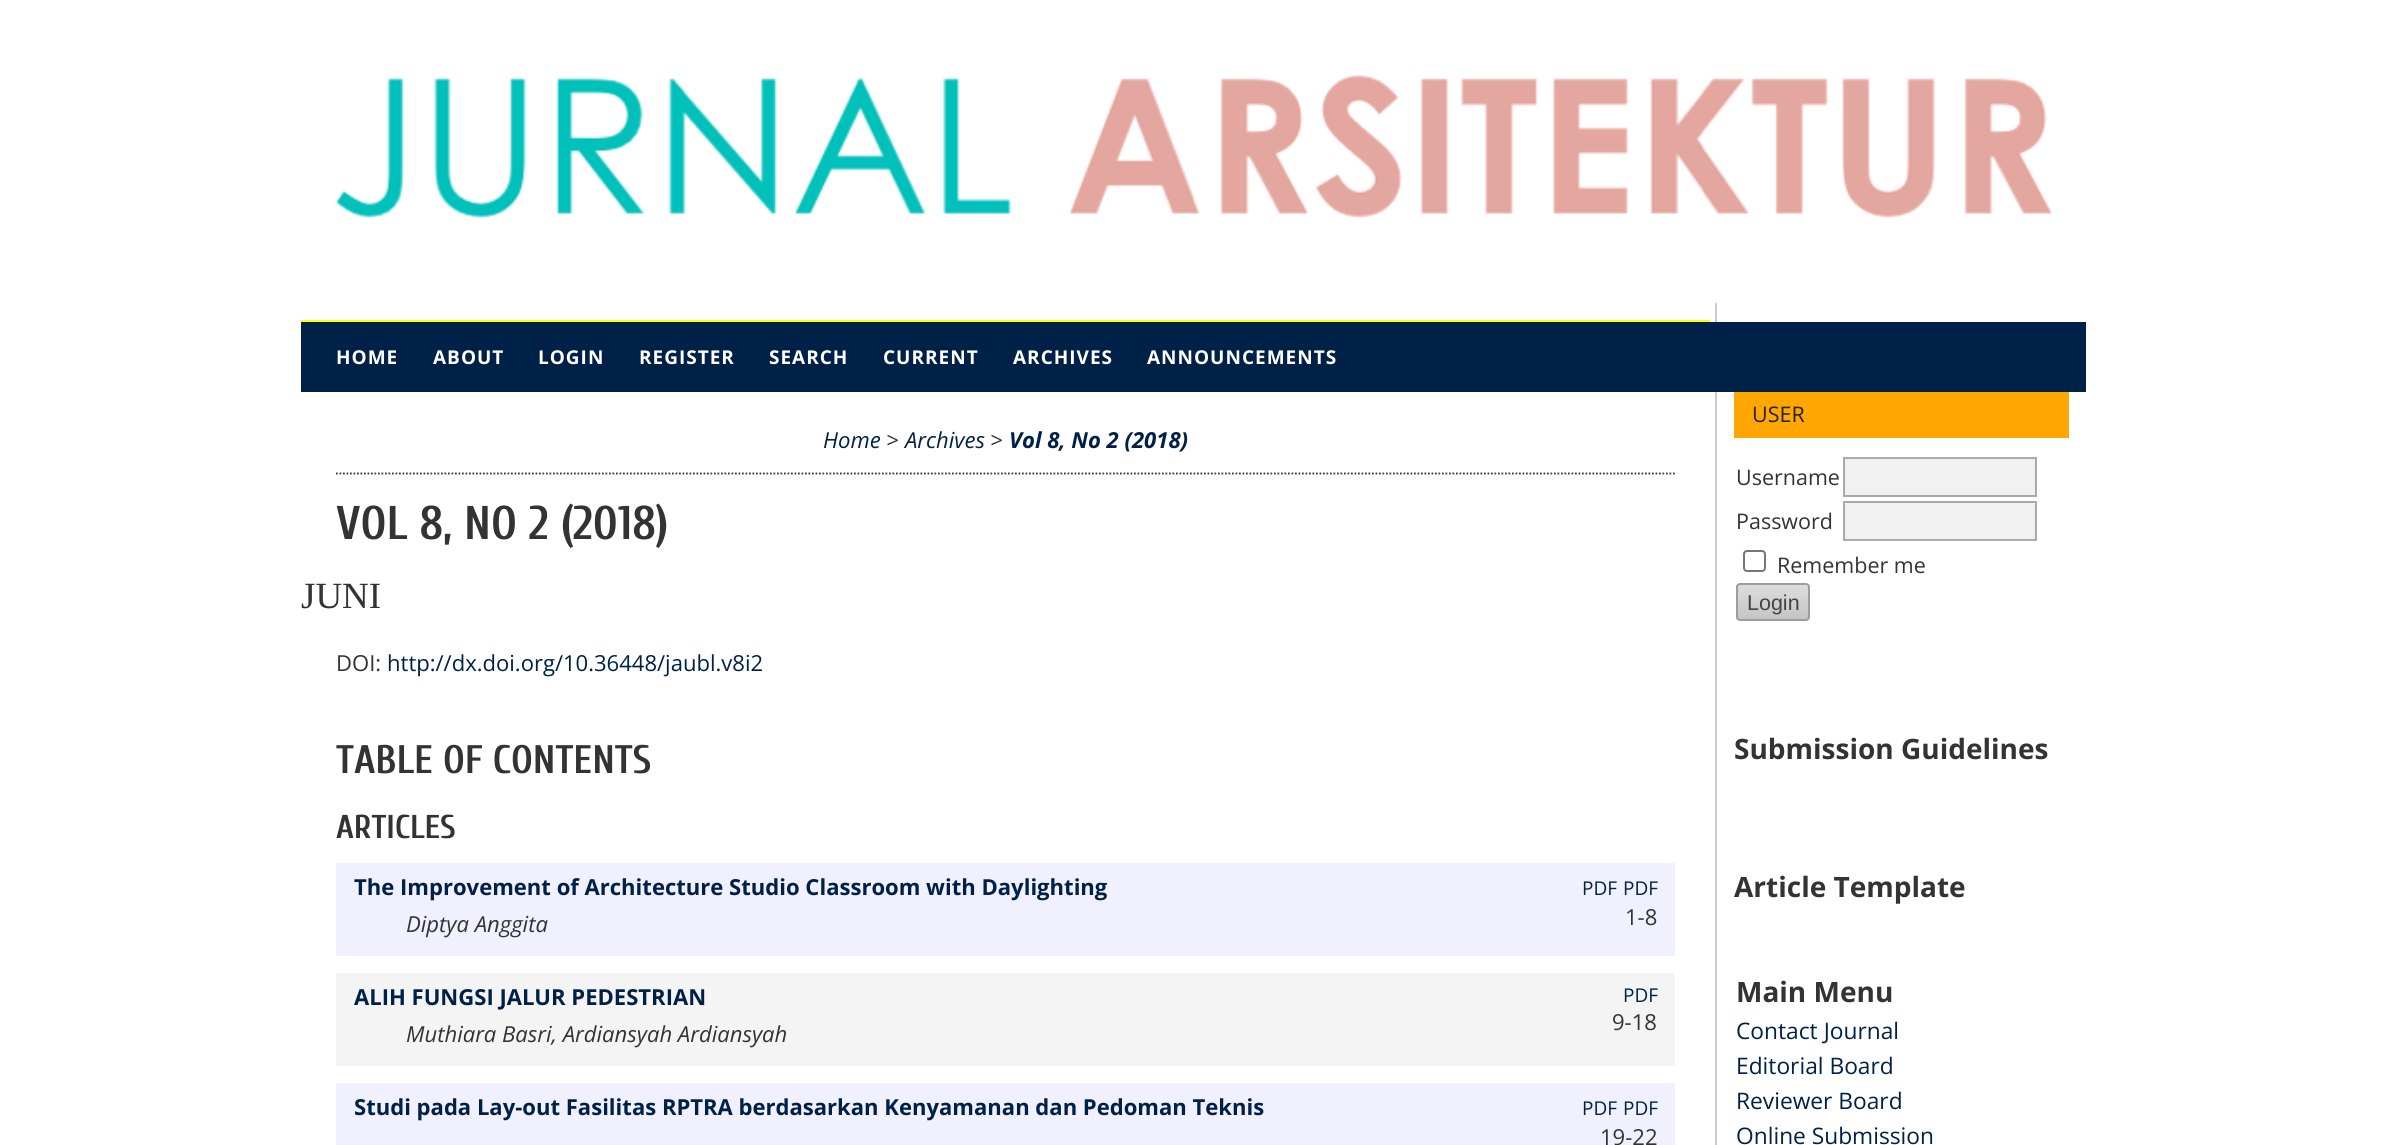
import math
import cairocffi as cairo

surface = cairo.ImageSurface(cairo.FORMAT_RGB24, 2387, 1145)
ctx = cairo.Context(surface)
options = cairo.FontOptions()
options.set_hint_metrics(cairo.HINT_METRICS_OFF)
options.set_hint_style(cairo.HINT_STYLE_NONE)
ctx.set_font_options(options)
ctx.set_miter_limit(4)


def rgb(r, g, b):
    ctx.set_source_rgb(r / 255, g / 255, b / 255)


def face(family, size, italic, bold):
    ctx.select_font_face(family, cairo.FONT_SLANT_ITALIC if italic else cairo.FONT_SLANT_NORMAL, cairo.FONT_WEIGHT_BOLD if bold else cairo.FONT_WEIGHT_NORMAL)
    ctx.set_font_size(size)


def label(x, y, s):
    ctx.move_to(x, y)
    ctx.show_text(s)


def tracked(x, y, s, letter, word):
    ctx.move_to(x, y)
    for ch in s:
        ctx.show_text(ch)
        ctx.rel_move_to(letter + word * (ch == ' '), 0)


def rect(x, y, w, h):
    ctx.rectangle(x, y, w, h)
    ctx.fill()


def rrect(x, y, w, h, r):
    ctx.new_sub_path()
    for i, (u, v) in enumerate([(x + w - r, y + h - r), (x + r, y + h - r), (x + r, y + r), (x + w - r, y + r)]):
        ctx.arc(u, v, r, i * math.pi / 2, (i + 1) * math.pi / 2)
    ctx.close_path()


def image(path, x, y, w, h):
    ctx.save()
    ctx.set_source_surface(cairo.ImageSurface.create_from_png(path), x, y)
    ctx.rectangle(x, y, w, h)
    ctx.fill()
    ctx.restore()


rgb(255, 255, 255)
ctx.paint()
image('image0.png', 335, 75, 1717, 143)
rgb(255, 255, 0)
rect(301, 320, 1409, 2)
rgb(204, 204, 204)
rect(1715, 303, 2, 842)
rgb(0, 33, 71)
rect(301, 322, 1785, 70)
face('Open Sans', 19, 0, 1)
rgb(255, 255, 255)
tracked(336, 364, 'HOME', 1, 0)
tracked(433, 364, 'ABOUT', 1, 0)
tracked(538, 364, 'LOGIN', 1, 0)
tracked(639, 364, 'REGISTER', 1, 0)
tracked(769, 364, 'SEARCH', 1, 0)
tracked(883, 364, 'CURRENT', 1, 0)
tracked(1013, 364, 'ARCHIVES', 1, 0)
tracked(1147, 364, 'ANNOUNCEMENTS', 1, 0)
ctx.new_path()
ctx.move_to(336, 473.5)
ctx.line_to(1675, 473.5)
rgb(51, 51, 51)
ctx.set_line_width(1.8)
ctx.set_dash([1.75, 1.75])
ctx.stroke()
face('Open Sans', 22.05, 1, 0)
rgb(0, 33, 71)
label(823, 448, 'Home')
rgb(51, 51, 51)
label(886, 448, '>')
rgb(0, 33, 71)
label(905, 448, 'Archives')
rgb(51, 51, 51)
label(990, 448, '>')
face('Open Sans', 22.05, 1, 1)
rgb(0, 33, 71)
label(1009, 448, 'Vol 8, No 2 (2018)')
face('Cuprum', 47.25, 0, 1)
rgb(51, 51, 51)
label(336, 539, 'VOL 8, NO 2 (2018)')
face('Liberation Serif', 37, 0, 0)
label(301, 608, 'JUNI')
face('Open Sans', 22.05, 0, 0)
label(336, 671, 'DOI:')
rgb(0, 33, 71)
label(387, 671, 'http://dx.doi.org/10.36448/jaubl.v8i2')
face('Cuprum', 39.75, 0, 1)
rgb(51, 51, 51)
label(336, 773, 'TABLE OF CONTENTS')
face('Cuprum', 33, 0, 1)
label(336, 838, 'ARTICLES')
rgb(240, 240, 255)
rect(336, 863, 1339, 93)
face('Open Sans', 22.05, 0, 1)
rgb(0, 33, 71)
label(354, 895, 'The Improvement of Architecture Studio Classroom with Daylighting')
face('Open Sans', 22.05, 1, 0)
rgb(51, 51, 51)
label(406, 932, 'Diptya Anggita')
face('Open Sans', 19, 0, 0)
rgb(0, 33, 71)
label(1582, 895, 'PDF')
label(1623, 895, 'PDF')
face('Open Sans', 22.05, 0, 0)
rgb(51, 51, 51)
label(1625, 925, '1-8')
rgb(244, 244, 244)
rect(336, 973, 1339, 93)
face('Open Sans', 22.05, 0, 1)
rgb(0, 33, 71)
label(354, 1005, 'ALIH FUNGSI JALUR PEDESTRIAN')
face('Open Sans', 22.05, 1, 0)
rgb(51, 51, 51)
label(406, 1042, 'Muthiara Basri, Ardiansyah Ardiansyah')
face('Open Sans', 19, 0, 0)
rgb(0, 33, 71)
label(1623, 1002, 'PDF')
face('Open Sans', 22.05, 0, 0)
rgb(51, 51, 51)
label(1612, 1030, '9-18')
rgb(240, 240, 255)
rect(336, 1083, 1339, 62)
face('Open Sans', 22.05, 0, 1)
rgb(0, 33, 71)
label(354, 1115, 'Studi pada Lay-out Fasilitas RPTRA berdasarkan Kenyamanan dan Pedoman Teknis')
face('Open Sans', 19, 0, 0)
label(1582, 1115, 'PDF')
label(1623, 1115, 'PDF')
face('Open Sans', 22.05, 0, 0)
rgb(51, 51, 51)
label(1600, 1145, '19-22')
rgb(255, 166, 0)
rect(1734, 392, 335, 46)
face('Open Sans', 21.5, 0, 0)
rgb(34, 34, 34)
label(1752, 422, 'USER')
rgb(51, 51, 51)
label(1736, 485, 'Username')
rgb(241, 241, 241)
ctx.rectangle(1844, 458, 192, 38)
ctx.fill_preserve()
rgb(170, 170, 170)
ctx.set_line_width(2)
ctx.set_dash([])
ctx.stroke()
rgb(51, 51, 51)
label(1736, 529, 'Password')
rgb(241, 241, 241)
ctx.rectangle(1844, 502, 192, 38)
ctx.fill_preserve()
rgb(170, 170, 170)
ctx.stroke()
rrect(1744, 551, 21, 20, 3)
rgb(118, 118, 118)
ctx.stroke()
rgb(51, 51, 51)
label(1777, 573, 'Remember me')
ctx.save()
rrect(1736, 583, 74, 38, 4)
ctx.clip()
gradient = cairo.LinearGradient(1773, 585, 1773, 620)
gradient.add_color_stop_rgba(0, 0.867, 0.867, 0.867, 1)
gradient.add_color_stop_rgba(1, 0.769, 0.769, 0.769, 1)
ctx.set_source(gradient)
rect(1736, 585, 74, 35)
ctx.restore()
rrect(1737, 584, 72, 36, 3)
rgb(157, 157, 157)
ctx.stroke()
face('Liberation Sans', 21.5, 0, 0)
rgb(68, 68, 68)
label(1747, 610, 'Login')
face('Open Sans', 28, 0, 1)
rgb(51, 51, 51)
label(1734, 759, 'Submission Guidelines')
label(1734, 897, 'Article Template')
label(1736, 1002, 'Main Menu')
face('Open Sans', 22.75, 0, 0)
rgb(0, 33, 71)
label(1736, 1039, 'Contact Journal')
label(1736, 1074, 'Editorial Board')
label(1736, 1109, 'Reviewer Board')
label(1736, 1144, 'Online Submission')
surface.write_to_png('render.png')
